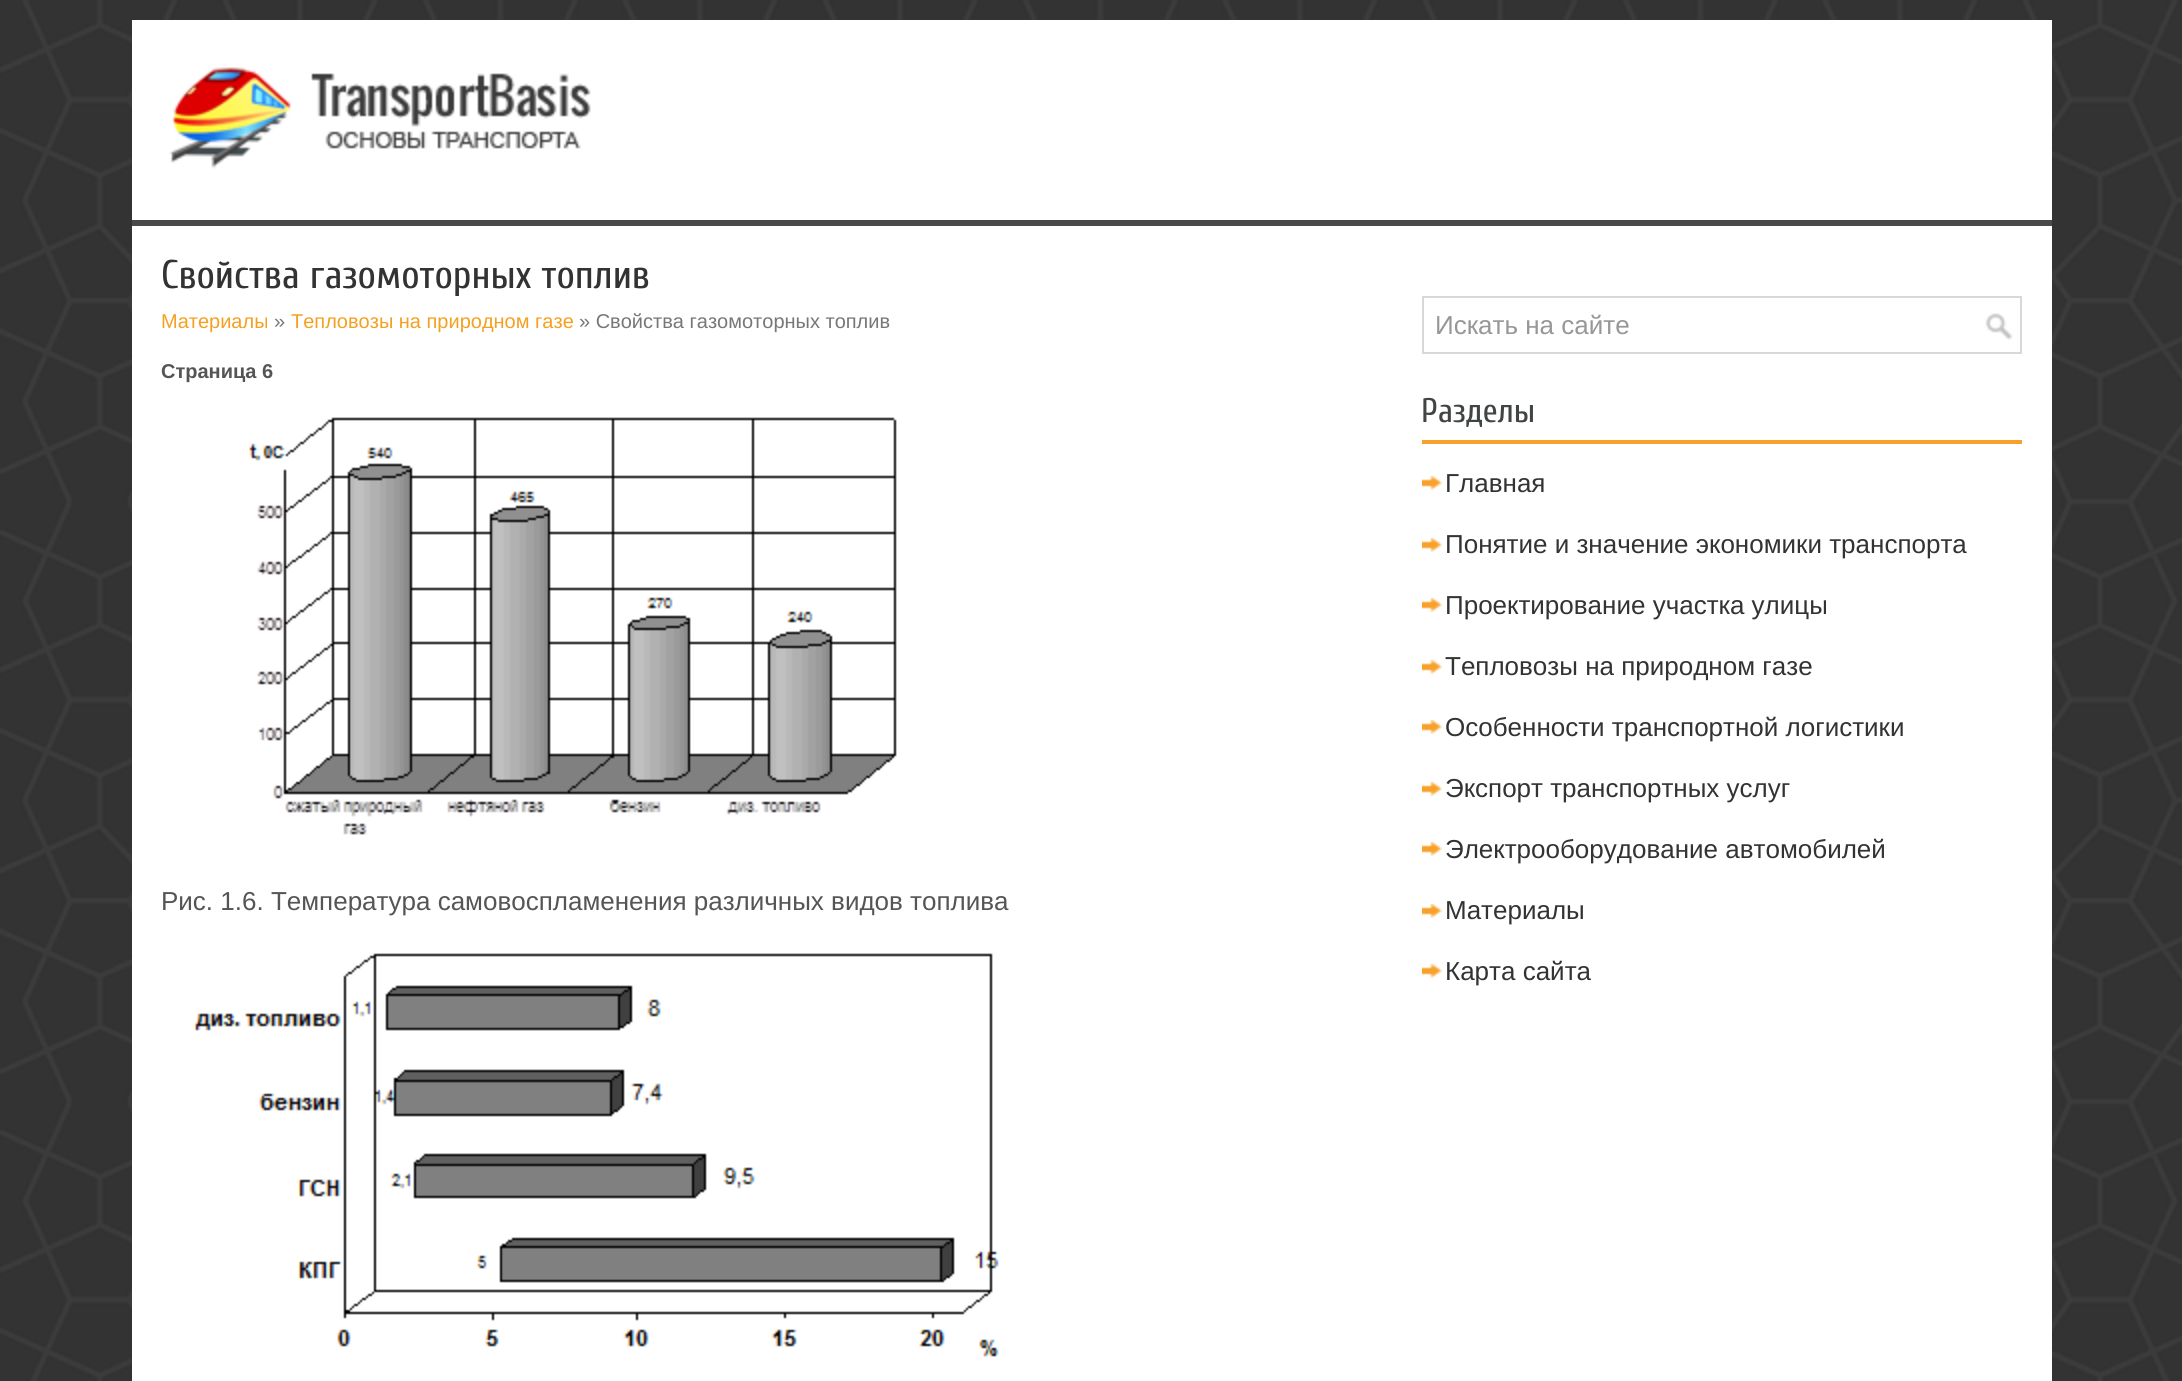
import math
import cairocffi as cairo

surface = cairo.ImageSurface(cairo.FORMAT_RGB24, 2182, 1381)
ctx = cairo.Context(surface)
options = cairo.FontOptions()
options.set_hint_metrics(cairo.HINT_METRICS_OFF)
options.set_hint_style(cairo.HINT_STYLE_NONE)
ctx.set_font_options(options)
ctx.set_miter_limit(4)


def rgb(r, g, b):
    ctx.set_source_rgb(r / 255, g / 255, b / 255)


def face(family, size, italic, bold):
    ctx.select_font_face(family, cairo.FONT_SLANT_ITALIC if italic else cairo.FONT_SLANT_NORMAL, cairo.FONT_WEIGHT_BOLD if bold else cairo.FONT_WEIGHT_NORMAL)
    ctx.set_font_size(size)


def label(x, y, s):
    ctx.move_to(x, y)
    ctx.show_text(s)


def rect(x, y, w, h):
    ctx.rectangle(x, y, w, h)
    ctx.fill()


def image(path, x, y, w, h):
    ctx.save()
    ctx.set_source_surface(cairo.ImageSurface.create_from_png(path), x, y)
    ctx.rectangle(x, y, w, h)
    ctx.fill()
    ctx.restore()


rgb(255, 255, 255)
ctx.paint()
image('image0.png', 0, 0, 2182, 1381)
rgb(255, 255, 255)
rect(132, 20, 1920, 1361)
rgb(73, 73, 73)
rect(132, 220, 1920, 6)
image('image1.png', 169, 67, 422, 102)
face('Cuprum', 40, 0, 0)
rgb(51, 51, 51)
label(161, 288, 'Свойства газомоторных топлив')
face('Liberation Sans', 20, 0, 0)
rgb(244, 160, 32)
label(161, 328, 'Материалы')
rgb(119, 119, 119)
label(274, 328, '»')
rgb(244, 160, 32)
label(291, 328, 'Тепловозы на природном газе')
rgb(119, 119, 119)
label(579, 328, '» Свойства газомоторных топлив')
face('Liberation Sans', 20, 0, 1)
rgb(85, 85, 85)
label(161, 378, 'Страница 6')
image('image2.png', 247, 417, 650, 418)
face('Liberation Sans', 26, 0, 0)
label(161, 910, 'Рис. 1.6. Температура самовоспламенения различных видов топлива')
image('image3.png', 193, 953, 806, 404)
image('image4.png', 1985, 313, 28, 27)
ctx.rectangle(1423, 297, 598, 56)
rgb(216, 216, 216)
ctx.stroke()
rgb(151, 151, 151)
label(1435, 334, 'Искать на сайте')
rgb(248, 160, 41)
rect(1422, 440, 600, 4)
face('Cuprum', 34, 0, 0)
rgb(65, 68, 69)
label(1421, 422, 'Разделы')
image('image5.png', 1422, 476, 20, 14)
face('Liberation Sans', 26, 0, 0)
rgb(51, 51, 51)
label(1445, 492, 'Главная')
image('image5.png', 1422, 538, 20, 14)
label(1445, 553, 'Понятие и значение экономики транспорта')
image('image5.png', 1422, 598, 20, 14)
label(1445, 614, 'Проектирование участка улицы')
image('image5.png', 1422, 660, 20, 14)
label(1445, 675, 'Тепловозы на природном газе')
image('image5.png', 1422, 720, 20, 14)
label(1445, 736, 'Особенности транспортной логистики')
image('image5.png', 1422, 782, 20, 14)
label(1445, 797, 'Экспорт транспортных услуг')
image('image5.png', 1422, 842, 20, 14)
label(1445, 858, 'Электрооборудование автомобилей')
image('image5.png', 1422, 904, 20, 14)
label(1445, 919, 'Материалы')
image('image5.png', 1422, 964, 20, 14)
label(1445, 980, 'Карта сайта')
surface.write_to_png('render.png')
